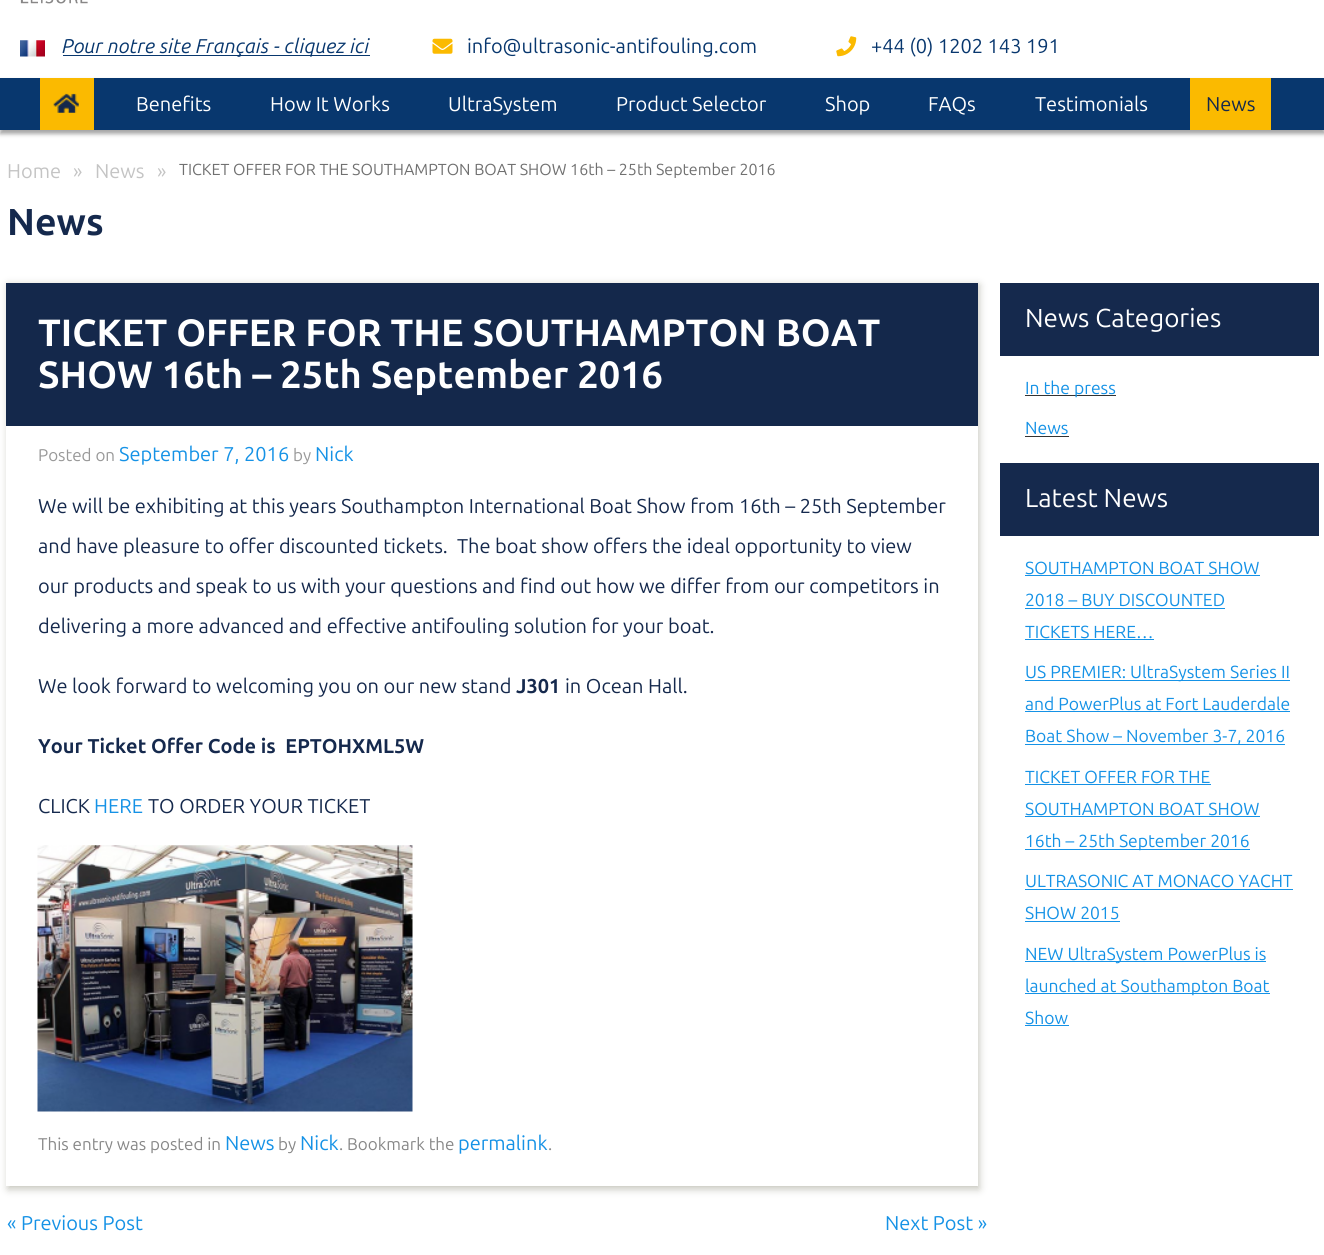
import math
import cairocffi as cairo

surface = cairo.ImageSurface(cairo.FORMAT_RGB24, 1324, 1255)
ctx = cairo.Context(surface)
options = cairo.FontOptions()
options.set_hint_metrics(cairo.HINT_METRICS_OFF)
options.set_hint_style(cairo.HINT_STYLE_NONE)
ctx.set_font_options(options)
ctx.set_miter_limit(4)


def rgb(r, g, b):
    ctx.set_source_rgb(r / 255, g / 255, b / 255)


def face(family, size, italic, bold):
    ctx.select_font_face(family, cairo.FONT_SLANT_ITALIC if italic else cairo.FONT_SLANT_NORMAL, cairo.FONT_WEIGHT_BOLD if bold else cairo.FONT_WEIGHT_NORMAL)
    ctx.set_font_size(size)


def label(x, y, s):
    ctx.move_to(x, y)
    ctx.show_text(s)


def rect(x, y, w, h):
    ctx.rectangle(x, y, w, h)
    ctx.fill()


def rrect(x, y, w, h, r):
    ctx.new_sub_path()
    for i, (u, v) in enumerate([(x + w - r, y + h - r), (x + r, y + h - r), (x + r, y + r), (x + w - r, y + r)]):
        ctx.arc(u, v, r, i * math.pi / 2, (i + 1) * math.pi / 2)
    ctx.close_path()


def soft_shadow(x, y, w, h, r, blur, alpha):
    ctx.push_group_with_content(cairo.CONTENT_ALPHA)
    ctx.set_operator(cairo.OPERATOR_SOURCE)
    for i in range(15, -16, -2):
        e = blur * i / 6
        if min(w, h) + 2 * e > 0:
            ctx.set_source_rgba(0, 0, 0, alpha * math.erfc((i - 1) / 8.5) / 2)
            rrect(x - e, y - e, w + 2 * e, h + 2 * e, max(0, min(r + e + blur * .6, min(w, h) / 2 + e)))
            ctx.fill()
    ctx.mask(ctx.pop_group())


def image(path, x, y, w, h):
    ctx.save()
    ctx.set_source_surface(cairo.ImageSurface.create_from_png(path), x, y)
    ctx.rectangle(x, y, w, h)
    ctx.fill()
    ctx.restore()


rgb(255, 255, 255)
ctx.paint()
image('image0.png', 20, 0, 68, 4)
image('image1.png', 20, 40, 25, 17)
rgb(8, 55, 110)
rect(63, 55, 307, 1)
face('Ubuntu', 20, 1, 0)
label(62, 53, 'Pour notre site Français - cliquez ici')
image('image2.png', 432, 38, 21, 16)
face('Ubuntu', 20, 0, 0)
label(467, 53, 'info@ultrasonic-antifouling.com')
image('image3.png', 836, 36, 21, 21)
label(871, 53, '+44 (0) 1202 143 191')
rgb(0, 0, 0)
soft_shadow(0, 81, 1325, 53, 0, 2, 0.35)
rgb(8, 55, 110)
rect(0, 78, 1324, 52)
rgb(251, 186, 0)
rect(40, 78, 54, 52)
image('image4.png', 53, 93, 26, 20)
rgb(255, 255, 255)
label(136, 111, 'Benefits')
label(270, 111, 'How It Works')
label(448, 111, 'UltraSystem')
label(616, 111, 'Product Selector')
label(825, 111, 'Shop')
label(928, 111, 'FAQs')
label(1035, 111, 'Testimonials')
rgb(251, 186, 0)
rect(1190, 78, 81, 52)
rgb(21, 41, 77)
label(1206, 111, 'News')
rgb(196, 196, 196)
label(7, 178, 'Home')
label(73, 178, '»')
label(95, 178, 'News')
label(157, 178, '»')
face('Ubuntu', 16, 0, 0)
rgb(112, 112, 112)
label(179, 175, 'TICKET OFFER FOR THE SOUTHAMPTON BOAT SHOW 16th – 25th September 2016')
face('Ubuntu', 37.5, 0, 1)
rgb(21, 41, 77)
label(7, 235, 'News')
rgb(196, 196, 187)
soft_shadow(8, 285, 971, 904, 0, 4, 1)
rgb(255, 255, 255)
rect(6, 426, 972, 760)
rgb(20, 40, 75)
rect(6, 283, 972, 143)
face('Ubuntu', 38, 0, 1)
rgb(255, 255, 255)
label(38, 346, 'TICKET OFFER FOR THE SOUTHAMPTON BOAT')
label(38, 388, 'SHOW 16th – 25th September 2016')
face('Ubuntu', 17, 0, 0)
rgb(153, 153, 153)
label(38, 461, 'Posted on')
face('Ubuntu', 20, 0, 0)
rgb(21, 146, 230)
label(119, 461, 'September 7, 2016')
face('Ubuntu', 17, 0, 0)
rgb(153, 153, 153)
label(293, 461, 'by')
face('Ubuntu', 20, 0, 0)
rgb(21, 146, 230)
label(315, 461, 'Nick')
rgb(21, 41, 77)
label(38, 513, 'We will be exhibiting at this years Southampton International Boat Show from 16th – 25th September')
label(38, 553, 'and have pleasure to offer discounted tickets.  The boat show offers the ideal opportunity to view')
label(38, 593, 'our products and speak to us with your questions and find out how we differ from our competitors in')
label(38, 633, 'delivering a more advanced and effective antifouling solution for your boat.')
label(38, 693, 'We look forward to welcoming you on our new stand')
face('Ubuntu', 20, 0, 1)
label(516, 693, 'J301')
face('Ubuntu', 20, 0, 0)
label(565, 693, 'in Ocean Hall.')
face('Ubuntu', 20, 0, 1)
label(38, 753, 'Your Ticket Offer Code is  EPTOHXML5W')
face('Ubuntu', 20, 0, 0)
label(38, 813, 'CLICK')
rgb(21, 146, 230)
label(94, 813, 'HERE')
rgb(21, 41, 77)
label(148, 813, 'TO ORDER YOUR TICKET')
image('image5.png', 37, 845, 376, 267)
face('Ubuntu', 17, 0, 0)
rgb(136, 136, 136)
label(38, 1150, 'This entry was posted in')
face('Ubuntu', 20, 0, 0)
rgb(21, 146, 230)
label(225, 1150, 'News')
face('Ubuntu', 17, 0, 0)
rgb(136, 136, 136)
label(278, 1150, 'by')
face('Ubuntu', 20, 0, 0)
rgb(21, 146, 230)
label(300, 1150, 'Nick')
face('Ubuntu', 17, 0, 0)
rgb(136, 136, 136)
label(339, 1150, '. Bookmark the')
face('Ubuntu', 20, 0, 0)
rgb(21, 146, 230)
label(458, 1150, 'permalink')
face('Ubuntu', 17, 0, 0)
rgb(136, 136, 136)
label(548, 1150, '.')
face('Ubuntu', 20, 0, 0)
rgb(21, 146, 230)
label(7, 1230, '« Previous Post')
label(885, 1230, 'Next Post »')
rgb(21, 41, 77)
rect(1000, 283, 319, 73)
face('Ubuntu', 26, 0, 0)
rgb(255, 255, 255)
label(1025, 327, 'News Categories')
rgb(51, 51, 51)
rect(1025, 395, 91, 1)
face('Ubuntu', 17.5, 0, 0)
rgb(21, 146, 230)
label(1025, 394, 'In the press')
label(1025, 434, 'News')
rgb(51, 51, 51)
rect(1025, 436, 44, 1)
rgb(21, 41, 77)
rect(1000, 463, 319, 73)
face('Ubuntu', 26, 0, 0)
rgb(255, 255, 255)
label(1025, 507, 'Latest News')
face('Ubuntu', 17.5, 0, 0)
rgb(21, 146, 230)
label(1025, 574, 'SOUTHAMPTON BOAT SHOW')
rect(1025, 575, 235, 1)
label(1025, 606, '2018 – BUY DISCOUNTED')
rect(1025, 608, 200, 1)
label(1025, 638, 'TICKETS HERE…')
rect(1025, 639, 129, 1)
rect(1025, 680, 265, 1)
label(1025, 678, 'US PREMIER: UltraSystem Series II')
label(1025, 710, 'and PowerPlus at Fort Lauderdale')
rect(1025, 711, 265, 1)
rect(1025, 744, 260, 1)
label(1025, 742, 'Boat Show – November 3-7, 2016')
label(1025, 783, 'TICKET OFFER FOR THE')
rect(1025, 784, 186, 1)
label(1025, 815, 'SOUTHAMPTON BOAT SHOW')
rect(1025, 816, 235, 1)
rect(1025, 849, 225, 1)
label(1025, 847, '16th – 25th September 2016')
label(1025, 887, 'ULTRASONIC AT MONACO YACHT')
rect(1025, 889, 268, 1)
label(1025, 919, 'SHOW 2015')
rect(1025, 921, 95, 1)
rect(1025, 961, 241, 1)
label(1025, 960, 'NEW UltraSystem PowerPlus is')
rect(1025, 993, 245, 1)
label(1025, 992, 'launched at Southampton Boat')
label(1025, 1024, 'Show')
rect(1025, 1025, 44, 1)
surface.write_to_png('render.png')
